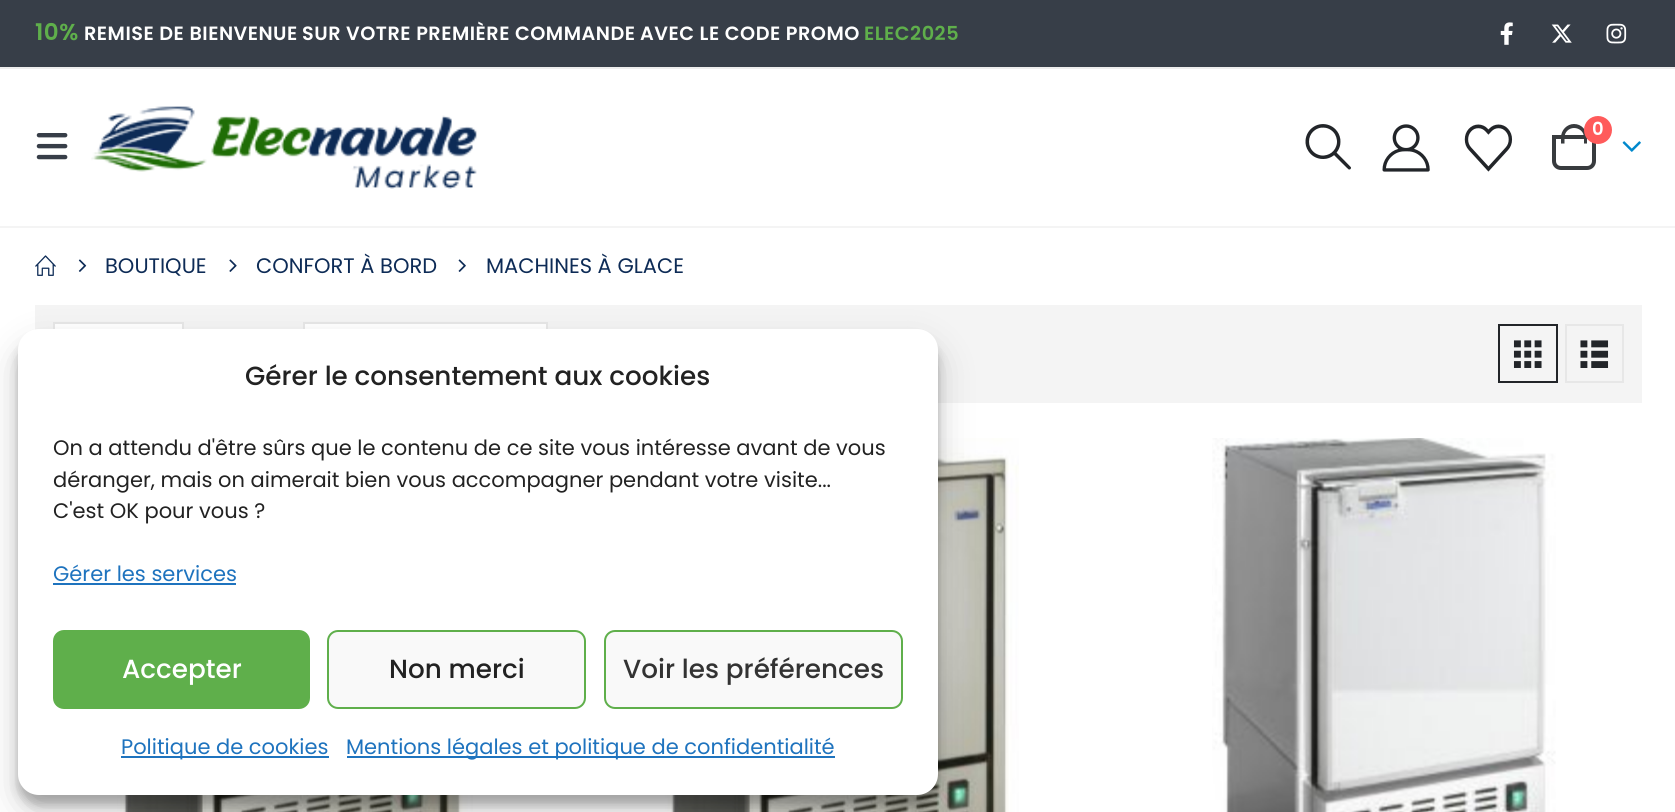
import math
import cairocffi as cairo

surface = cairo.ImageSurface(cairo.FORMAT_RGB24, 1675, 812)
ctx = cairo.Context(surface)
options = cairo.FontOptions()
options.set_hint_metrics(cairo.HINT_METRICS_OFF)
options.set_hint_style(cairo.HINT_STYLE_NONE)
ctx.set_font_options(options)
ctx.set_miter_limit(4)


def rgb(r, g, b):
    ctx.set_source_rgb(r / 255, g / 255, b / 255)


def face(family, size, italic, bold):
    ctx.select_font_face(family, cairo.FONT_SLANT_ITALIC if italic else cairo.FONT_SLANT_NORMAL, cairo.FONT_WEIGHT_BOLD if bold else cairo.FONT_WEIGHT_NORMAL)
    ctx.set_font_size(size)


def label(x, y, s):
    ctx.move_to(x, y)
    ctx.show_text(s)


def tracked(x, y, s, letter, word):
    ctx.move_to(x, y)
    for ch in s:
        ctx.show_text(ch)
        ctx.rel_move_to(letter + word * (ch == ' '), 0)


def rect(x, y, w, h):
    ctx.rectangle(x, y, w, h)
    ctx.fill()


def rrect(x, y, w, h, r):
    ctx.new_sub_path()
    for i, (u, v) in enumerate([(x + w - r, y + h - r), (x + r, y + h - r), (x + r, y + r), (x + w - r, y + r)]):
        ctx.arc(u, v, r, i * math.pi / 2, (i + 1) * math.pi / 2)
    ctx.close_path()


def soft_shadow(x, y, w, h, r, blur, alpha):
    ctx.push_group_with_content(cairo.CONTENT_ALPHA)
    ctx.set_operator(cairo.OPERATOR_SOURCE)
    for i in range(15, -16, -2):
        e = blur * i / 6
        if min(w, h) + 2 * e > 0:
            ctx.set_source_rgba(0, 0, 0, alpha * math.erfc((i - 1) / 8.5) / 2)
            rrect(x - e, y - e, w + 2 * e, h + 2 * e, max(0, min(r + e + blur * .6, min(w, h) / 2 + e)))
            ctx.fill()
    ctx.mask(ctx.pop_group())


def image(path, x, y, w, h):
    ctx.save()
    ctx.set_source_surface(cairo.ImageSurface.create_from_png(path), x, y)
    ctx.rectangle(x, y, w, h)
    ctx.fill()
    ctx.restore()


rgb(255, 255, 255)
ctx.paint()
rgb(55, 62, 72)
rect(0, 0, 1675, 67)
rgb(244, 244, 244)
rect(0, 226, 1675, 2)
face('Poppins SemiBold', 23, 0, 0)
rgb(95, 175, 75)
tracked(35, 40, '10%', 0.5, 0)
face('Poppins SemiBold', 19.25, 0, 0)
rgb(255, 255, 255)
tracked(84, 40, 'REMISE DE BIENVENUE', 0.5, 0)
tracked(302, 40, 'SUR VOTRE PREMIÈRE COMMANDE', 0.5, 0)
tracked(640, 40, 'AVEC LE CODE PROMO', 0.5, 0)
rgb(95, 175, 75)
tracked(864, 40, 'ELEC2025', 0.5, 0)
image('image0.png', 1500, 22, 13, 23)
image('image1.png', 1551, 24, 21, 19)
image('image2.png', 1606, 23, 21, 21)
rgb(237, 237, 237)
rect(0, 67, 1675, 2)
image('image3.png', 36, 133, 32, 27)
image('image4.png', 91, 106, 386, 83)
image('image5.png', 1305, 124, 46, 46)
image('image6.png', 1382, 124, 48, 48)
image('image7.png', 1464, 124, 49, 48)
ctx.new_path()
ctx.move_to(1554, 137)
ctx.line_to(1594, 137)
ctx.line_to(1594, 161)
ctx.curve_to(1594, 165, 1591, 168, 1587, 168)
ctx.line_to(1561, 168)
ctx.curve_to(1557, 168, 1554, 165, 1554, 161)
ctx.close_path()
rgb(56, 59, 62)
ctx.set_line_width(4)
ctx.stroke()
ctx.set_fill_rule(cairo.FILL_RULE_EVEN_ODD)
ctx.new_path()
ctx.move_to(1574, 124)
ctx.curve_to(1581.5, 124, 1587, 130, 1587, 137.5)
ctx.line_to(1587, 143.5)
ctx.line_to(1561, 143.5)
ctx.line_to(1561, 137.5)
ctx.curve_to(1561, 130, 1567, 124, 1574, 124)
ctx.close_path()
ctx.move_to(1574, 128)
ctx.curve_to(1579.5, 128, 1584, 132, 1584, 137.5)
ctx.line_to(1584, 143.5)
ctx.line_to(1564.5, 143.5)
ctx.line_to(1564.5, 137.5)
ctx.curve_to(1564.5, 132, 1569, 128, 1574, 128)
ctx.close_path()
ctx.fill()
rgb(255, 91, 91)
ctx.arc(1598, 130, 14, 0, 2 * math.pi)
ctx.fill()
face('Poppins SemiBold', 18, 0, 0)
rgb(255, 255, 255)
label(1592, 135, '0')
image('image8.png', 1622, 141, 19, 11)
image('image9.png', 35, 255, 21, 21)
image('image10.png', 78, 259, 9, 13)
face('Poppins', 21, 0, 0)
rgb(13, 43, 86)
label(105, 273, 'BOUTIQUE')
image('image11.png', 229, 259, 8, 13)
label(256, 273, 'CONFORT À BORD')
image('image12.png', 458, 259, 8, 13)
label(486, 273, 'MACHINES À GLACE')
rgb(244, 244, 244)
rect(35, 305, 1607, 98)
rgb(255, 255, 255)
rect(55, 324, 127, 5)
ctx.rectangle(54, 323, 129, 61)
rgb(231, 231, 231)
ctx.set_line_width(2)
ctx.stroke()
rgb(255, 255, 255)
rect(305, 324, 241, 5)
ctx.rectangle(304, 323, 243, 61)
rgb(231, 231, 231)
ctx.stroke()
ctx.rectangle(1499, 325, 58, 57)
rgb(34, 37, 41)
ctx.stroke()
image('image13.png', 1513, 340, 29, 28)
ctx.rectangle(1566, 325, 57, 57)
rgb(231, 231, 231)
ctx.stroke()
image('image14.png', 1580, 340, 29, 28)
image('image15.png', 117, 795, 356, 17)
image('image16.png', 665, 438, 354, 374)
image('image17.png', 1212, 438, 344, 374)
rgb(0, 0, 0)
soft_shadow(18, 340, 920, 465, 21, 5, 0.23)
soft_shadow(18, 347, 920, 465, 21, 17.5, 0.19)
rgb(255, 255, 255)
rrect(18, 329, 920, 466, 21)
ctx.fill()
face('Poppins Medium', 26.25, 0, 0)
rgb(34, 34, 34)
label(245, 385, 'Gérer le consentement aux cookies')
face('Poppins', 21, 0, 0)
label(53, 455, 'On a attendu d\'être sûrs que le contenu de ce site vous intéresse avant de vous')
label(53, 487, 'déranger, mais on aimerait bien vous accompagner pendant votre visite...')
label(53, 518, 'C\'est OK pour vous ?')
rgb(30, 115, 190)
label(53, 581, 'Gérer les services')
rect(53, 583, 183, 2)
rgb(95, 175, 75)
rrect(54, 631, 255, 77, 10)
ctx.fill_preserve()
ctx.stroke()
face('Poppins Medium', 26.25, 0, 0)
rgb(255, 255, 255)
label(122, 678, 'Accepter')
rgb(249, 249, 249)
rrect(328, 631, 257, 77, 10)
ctx.fill_preserve()
rgb(95, 175, 75)
ctx.stroke()
rgb(34, 34, 34)
label(389, 678, 'Non merci')
rgb(249, 249, 249)
rrect(605, 631, 297, 77, 10)
ctx.fill_preserve()
rgb(95, 175, 75)
ctx.stroke()
rgb(51, 51, 51)
label(623, 678, 'Voir les préférences')
rgb(30, 115, 190)
rect(121, 756, 208, 2)
face('Poppins', 21, 0, 0)
label(121, 754, 'Politique de cookies')
rect(347, 756, 488, 2)
label(346, 754, 'Mentions légales et politique de confidentialité')
surface.write_to_png('render.png')
